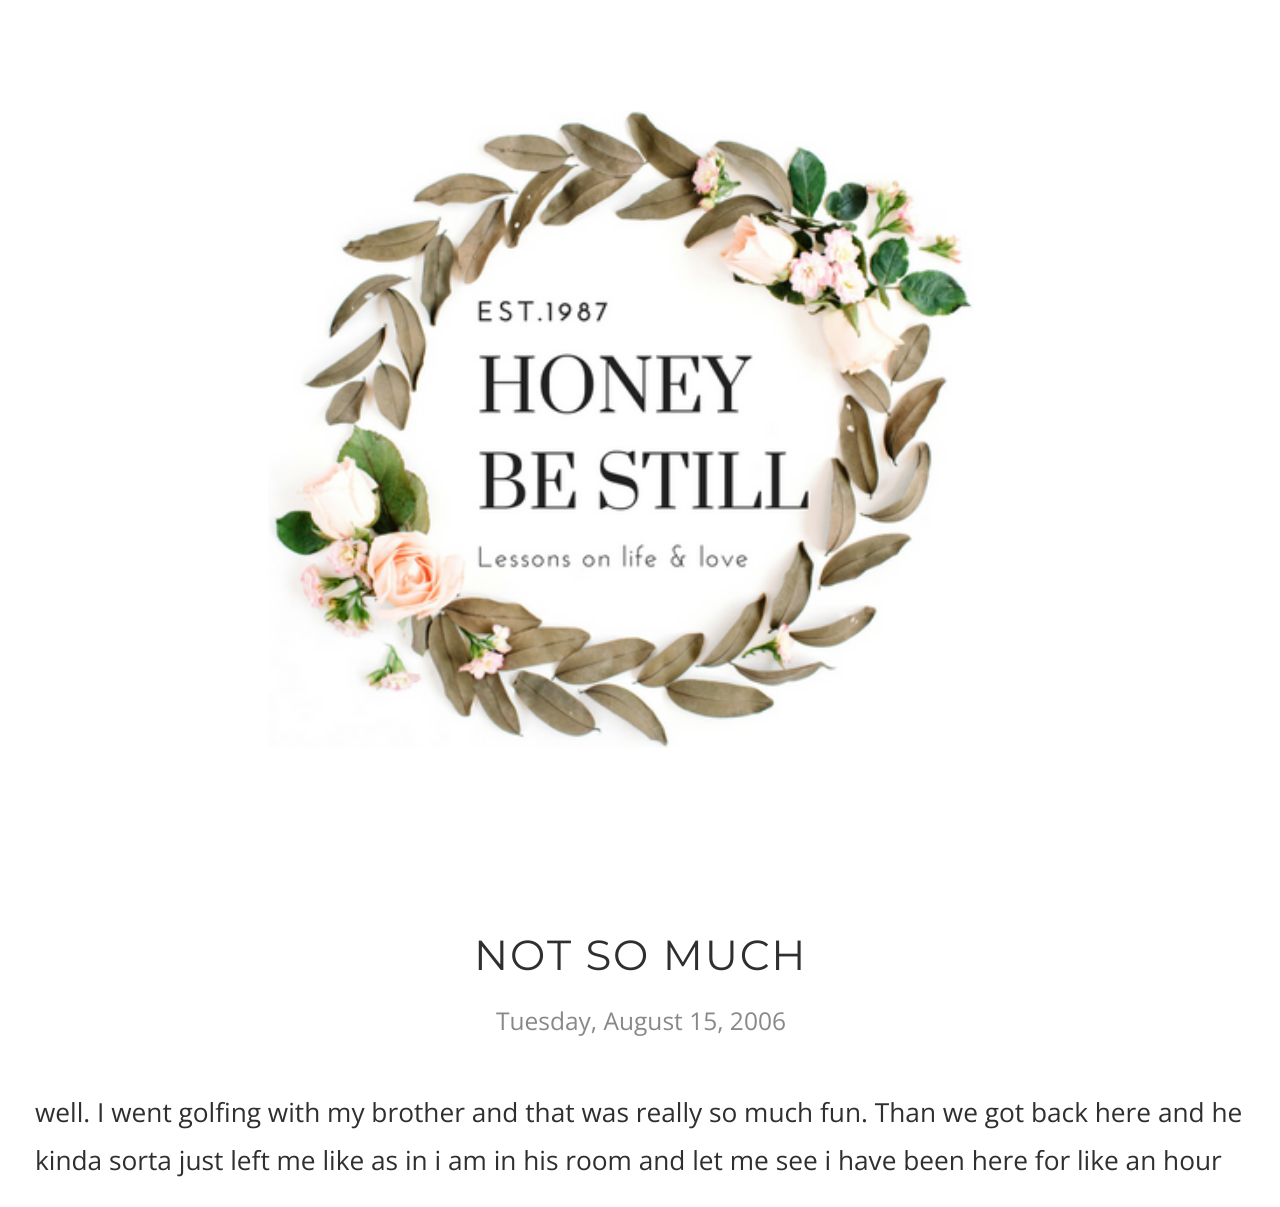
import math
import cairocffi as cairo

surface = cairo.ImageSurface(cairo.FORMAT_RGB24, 1280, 1207)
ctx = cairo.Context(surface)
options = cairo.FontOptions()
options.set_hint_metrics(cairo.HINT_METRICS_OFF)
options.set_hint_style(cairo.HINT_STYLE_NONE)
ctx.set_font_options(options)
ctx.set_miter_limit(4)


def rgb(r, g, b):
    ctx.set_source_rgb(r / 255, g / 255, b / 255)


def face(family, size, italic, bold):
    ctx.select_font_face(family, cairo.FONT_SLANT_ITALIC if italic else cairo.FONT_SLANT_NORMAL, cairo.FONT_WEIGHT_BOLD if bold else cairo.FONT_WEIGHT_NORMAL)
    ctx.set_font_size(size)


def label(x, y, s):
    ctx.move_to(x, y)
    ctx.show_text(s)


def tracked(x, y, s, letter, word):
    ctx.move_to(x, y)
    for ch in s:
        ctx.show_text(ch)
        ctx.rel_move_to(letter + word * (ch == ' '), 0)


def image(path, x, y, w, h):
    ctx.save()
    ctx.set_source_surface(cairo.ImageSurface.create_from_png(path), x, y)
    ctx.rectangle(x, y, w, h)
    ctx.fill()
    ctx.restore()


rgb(255, 255, 255)
ctx.paint()
image('image0.png', 268, 111, 706, 637)
face('Montserrat', 42, 0, 0)
rgb(47, 47, 47)
tracked(474, 970, 'NOT SO MUCH', 1.75, 0)
face('Open Sans', 24.5, 0, 0)
rgb(136, 136, 136)
label(496, 1030, 'Tuesday, August 15, 2006')
face('Open Sans', 26.25, 0, 0)
rgb(47, 47, 47)
label(35, 1122, 'well. I went golfing with my brother and that was really so much fun. Than we got back here and he')
label(35, 1170, 'kinda sorta just left me like as in i am in his room and let me see i have been here for like an hour')
surface.write_to_png('render.png')
